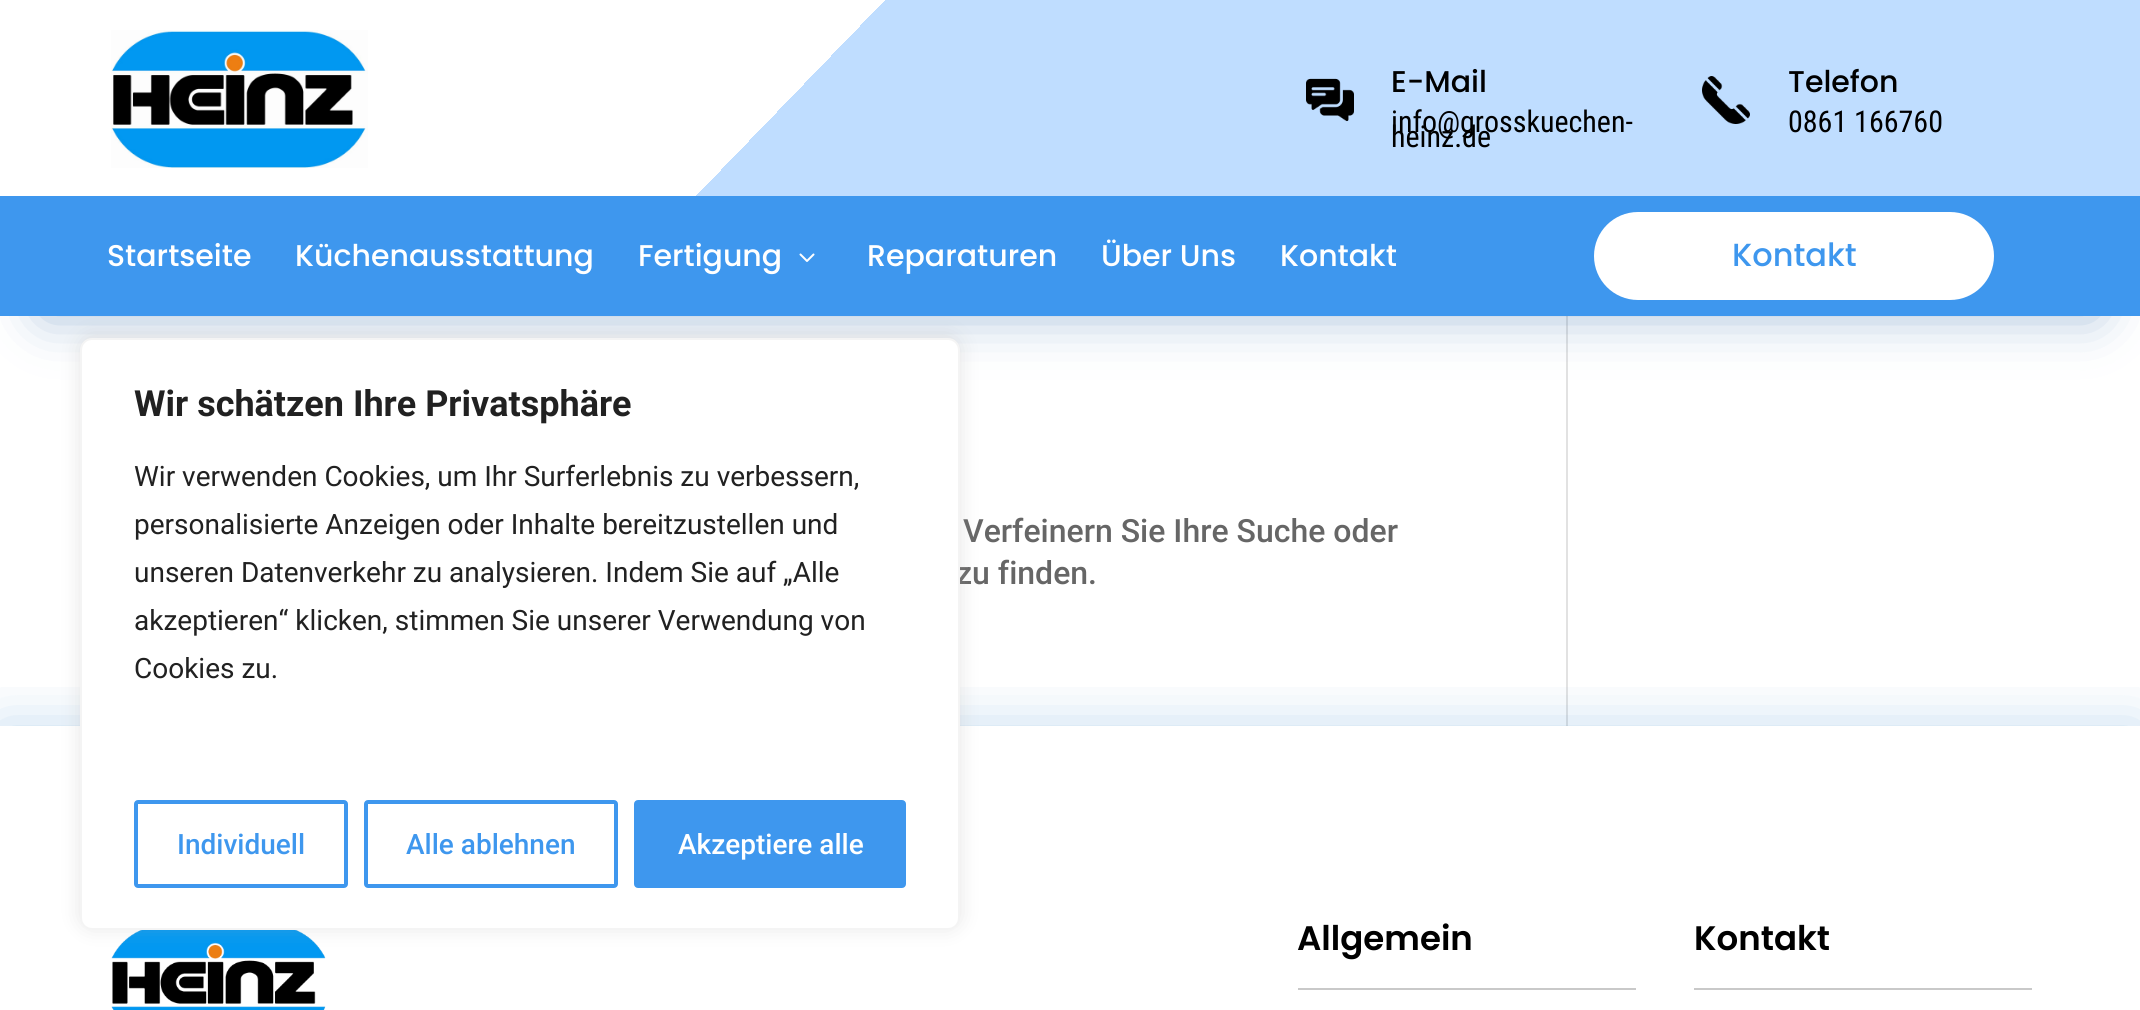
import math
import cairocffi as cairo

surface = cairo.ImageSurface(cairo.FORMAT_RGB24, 2140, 1010)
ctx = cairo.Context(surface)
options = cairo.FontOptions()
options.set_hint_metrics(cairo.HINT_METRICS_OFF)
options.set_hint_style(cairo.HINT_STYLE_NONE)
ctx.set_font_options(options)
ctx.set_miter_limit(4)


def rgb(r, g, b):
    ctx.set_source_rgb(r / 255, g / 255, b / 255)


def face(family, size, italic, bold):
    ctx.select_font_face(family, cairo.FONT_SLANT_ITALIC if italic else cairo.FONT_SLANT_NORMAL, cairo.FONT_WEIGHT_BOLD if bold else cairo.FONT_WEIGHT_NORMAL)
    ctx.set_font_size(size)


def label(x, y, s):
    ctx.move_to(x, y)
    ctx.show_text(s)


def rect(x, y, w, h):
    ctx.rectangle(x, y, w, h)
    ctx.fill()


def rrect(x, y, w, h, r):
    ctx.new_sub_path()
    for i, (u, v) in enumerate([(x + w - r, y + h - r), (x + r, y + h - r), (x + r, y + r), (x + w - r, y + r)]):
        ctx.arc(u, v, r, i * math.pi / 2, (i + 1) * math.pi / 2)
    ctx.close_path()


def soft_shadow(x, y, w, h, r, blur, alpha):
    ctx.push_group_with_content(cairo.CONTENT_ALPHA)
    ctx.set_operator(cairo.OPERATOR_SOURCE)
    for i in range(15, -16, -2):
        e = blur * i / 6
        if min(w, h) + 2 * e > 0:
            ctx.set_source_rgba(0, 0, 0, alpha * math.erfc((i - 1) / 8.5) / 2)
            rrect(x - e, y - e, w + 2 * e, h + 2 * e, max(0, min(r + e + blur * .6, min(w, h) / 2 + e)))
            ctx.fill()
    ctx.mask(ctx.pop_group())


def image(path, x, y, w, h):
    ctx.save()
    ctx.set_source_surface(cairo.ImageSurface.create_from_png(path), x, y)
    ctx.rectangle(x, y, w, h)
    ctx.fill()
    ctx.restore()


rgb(255, 255, 255)
ctx.paint()
gradient = cairo.LinearGradient(467, -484, 1673, 680)
gradient.add_color_stop_rgba(0.38, 1, 1, 1, 1)
gradient.add_color_stop_rgba(0.38, 0.749, 0.867, 1, 1)
ctx.set_source(gradient)
rect(696, 0, 1444, 196)
image('image0.png', 111, 30, 257, 138)
image('image1.png', 1306, 78, 48, 44)
face('Poppins Medium', 30, 0, 0)
rgb(0, 0, 0)
label(1391, 92, 'E-Mail')
face('Roboto Condensed', 30, 0, 0)
label(1391, 132, 'info@grosskuechen-')
label(1391, 147, 'heinz.de')
image('image2.png', 1702, 76, 48, 48)
face('Poppins Medium', 30, 0, 0)
label(1788, 92, 'Telefon')
face('Roboto Condensed', 30, 0, 0)
label(1788, 132, '0861 166760')
rgb(226, 226, 226)
rect(1566, 316, 2, 410)
rgb(7, 76, 155)
soft_shadow(46, 284, 2048, 28, 0, 27, 0.43)
rgb(62, 151, 238)
rect(0, 196, 2140, 120)
face('Poppins Medium', 30, 0, 0)
rgb(255, 255, 255)
label(107, 266, 'Startseite')
label(295, 266, 'Küchenausstattung')
label(638, 266, 'Fertigung')
image('image3.png', 799, 253, 16, 9)
label(867, 266, 'Reparaturen')
label(1101, 266, 'Über Uns')
label(1280, 266, 'Kontakt')
rrect(1594, 212, 400, 88, 44)
ctx.fill()
face('Poppins Medium', 32, 0, 0)
rgb(62, 151, 238)
label(1732, 266, 'Kontakt')
face('Roboto Medium', 32, 0, 0)
rgb(102, 102, 102)
label(963, 542, 'Verfeinern Sie Ihre Suche oder')
label(956, 584, 'zu finden.')
ctx.save()
ctx.rectangle(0, 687, 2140, 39)
ctx.clip()
rgb(0, 105, 191)
soft_shadow(0, 730, 2140, 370, 0, 30, 0.27)
ctx.restore()
image('image4.png', 111, 930, 215, 80)
face('Poppins SemiBold', 34, 0, 0)
rgb(0, 0, 0)
label(1297, 950, 'Allgemein')
rgb(201, 201, 201)
rect(1298, 988, 338, 2)
rgb(0, 0, 0)
label(1694, 950, 'Kontakt')
rgb(201, 201, 201)
rect(1694, 988, 338, 2)
rgb(172, 171, 171)
soft_shadow(80, 336, 880, 592, 12, 10, 0.3)
rgb(255, 255, 255)
rrect(81, 339, 878, 590, 11)
ctx.fill_preserve()
rgb(244, 244, 244)
ctx.stroke()
face('Roboto', 36, 0, 1)
rgb(33, 33, 33)
label(134, 416, 'Wir schätzen Ihre Privatsphäre')
face('Roboto', 28, 0, 0)
label(134, 486, 'Wir verwenden Cookies, um Ihr Surferlebnis zu verbessern,')
label(134, 534, 'personalisierte Anzeigen oder Inhalte bereitzustellen und')
label(134, 582, 'unseren Datenverkehr zu analysieren. Indem Sie auf „Alle')
label(134, 630, 'akzeptieren“ klicken, stimmen Sie unserer Verwendung von')
label(134, 678, 'Cookies zu.')
rrect(136, 802, 210, 84, 2)
rgb(62, 151, 238)
ctx.set_line_width(4)
ctx.stroke()
face('Roboto Medium', 28, 0, 0)
label(177, 854, 'Individuell')
rrect(366, 802, 250, 84, 2)
ctx.stroke()
label(406, 854, 'Alle ablehnen')
rrect(636, 802, 268, 84, 2)
ctx.fill_preserve()
ctx.stroke()
rgb(255, 255, 255)
label(678, 854, 'Akzeptiere alle')
surface.write_to_png('render.png')
